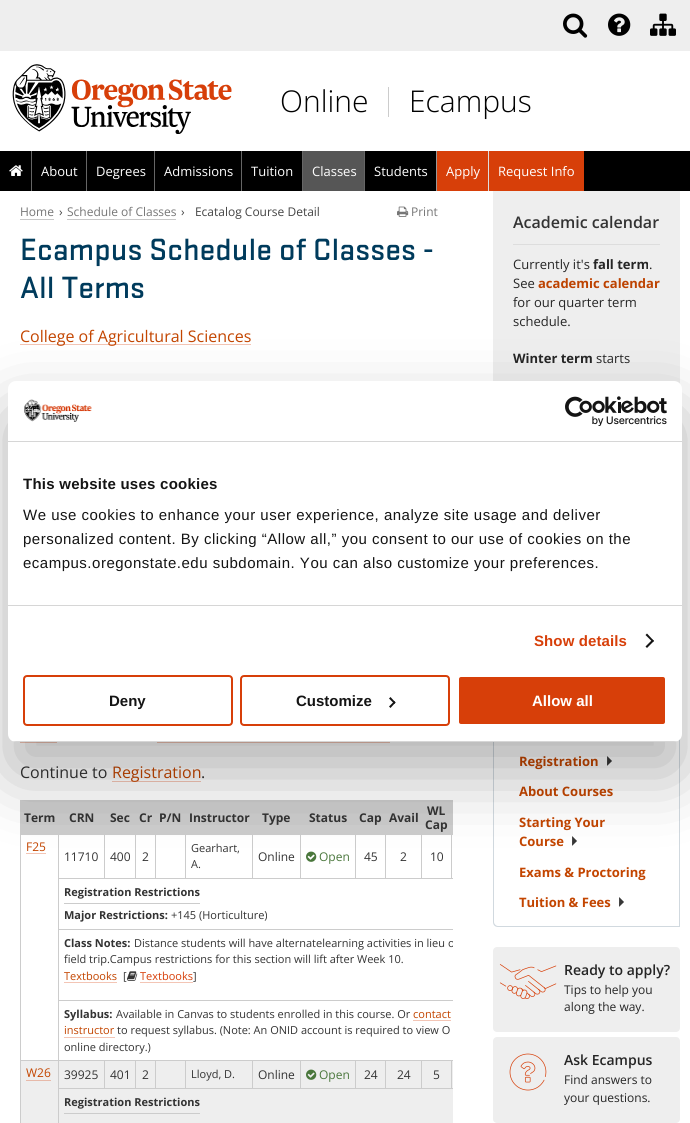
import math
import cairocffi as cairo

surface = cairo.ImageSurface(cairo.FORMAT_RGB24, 690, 1123)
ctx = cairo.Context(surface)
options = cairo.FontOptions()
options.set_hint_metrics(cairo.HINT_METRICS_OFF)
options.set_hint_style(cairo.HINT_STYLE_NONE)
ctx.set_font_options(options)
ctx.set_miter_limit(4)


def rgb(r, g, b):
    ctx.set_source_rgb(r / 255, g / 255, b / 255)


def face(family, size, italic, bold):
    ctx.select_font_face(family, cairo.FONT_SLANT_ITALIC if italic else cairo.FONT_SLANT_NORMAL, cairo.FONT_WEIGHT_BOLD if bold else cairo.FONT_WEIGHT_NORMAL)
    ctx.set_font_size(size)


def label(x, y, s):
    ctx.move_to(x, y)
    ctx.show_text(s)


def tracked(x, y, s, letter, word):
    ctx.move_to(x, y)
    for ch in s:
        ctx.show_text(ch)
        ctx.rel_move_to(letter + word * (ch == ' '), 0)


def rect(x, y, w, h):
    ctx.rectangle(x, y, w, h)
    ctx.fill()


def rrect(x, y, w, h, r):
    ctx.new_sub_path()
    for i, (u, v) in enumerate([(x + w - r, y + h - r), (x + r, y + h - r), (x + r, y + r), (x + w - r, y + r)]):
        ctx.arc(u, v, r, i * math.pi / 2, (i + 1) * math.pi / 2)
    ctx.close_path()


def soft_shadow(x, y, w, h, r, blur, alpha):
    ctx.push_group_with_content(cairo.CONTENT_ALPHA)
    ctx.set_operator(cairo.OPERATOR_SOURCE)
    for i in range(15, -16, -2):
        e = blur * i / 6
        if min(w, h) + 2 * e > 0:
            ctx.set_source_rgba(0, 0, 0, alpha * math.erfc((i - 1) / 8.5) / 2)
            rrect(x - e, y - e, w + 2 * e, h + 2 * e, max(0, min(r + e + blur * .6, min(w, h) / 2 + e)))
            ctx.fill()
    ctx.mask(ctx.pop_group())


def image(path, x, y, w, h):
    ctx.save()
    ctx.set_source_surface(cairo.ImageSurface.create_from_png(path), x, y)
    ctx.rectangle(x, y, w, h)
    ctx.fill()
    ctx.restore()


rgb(255, 255, 255)
ctx.paint()
rgb(238, 238, 238)
rect(0, 0, 690, 51)
image('image0.png', 563, 13, 25, 25)
image('image1.png', 608, 13, 23, 23)
image('image2.png', 650, 13, 26, 23)
image('image3.png', 12, 64, 220, 70)
face('Open Sans Light', 30, 0, 0)
rgb(0, 0, 0)
label(280, 112, 'Online')
rgb(204, 204, 204)
rect(388, 87, 1, 30)
rgb(0, 0, 0)
label(409, 112, 'Ecampus')
rect(0, 151, 690, 40)
image('image4.png', 9, 165, 14, 11)
rgb(102, 102, 102)
rect(31, 151, 1, 40)
face('Open Sans', 13, 0, 0)
rgb(255, 255, 255)
label(41, 176, 'About')
rgb(102, 102, 102)
rect(86, 151, 1, 40)
rgb(255, 255, 255)
label(96, 176, 'Degrees')
rgb(102, 102, 102)
rect(154, 151, 1, 40)
rgb(255, 255, 255)
label(164, 176, 'Admissions')
rgb(102, 102, 102)
rect(241, 151, 1, 40)
rgb(255, 255, 255)
label(251, 176, 'Tuition')
rgb(86, 86, 86)
rect(303, 151, 61, 40)
rgb(102, 102, 102)
rect(302, 151, 1, 40)
rgb(255, 255, 255)
label(312, 176, 'Classes')
rgb(102, 102, 102)
rect(364, 151, 1, 40)
rgb(255, 255, 255)
label(374, 176, 'Students')
rgb(153, 153, 153)
rect(436, 151, 1, 40)
rgb(215, 63, 9)
rect(437, 151, 51, 40)
rgb(255, 255, 255)
label(446, 176, 'Apply')
rgb(221, 221, 221)
rect(488, 151, 1, 40)
rgb(215, 63, 9)
rect(489, 151, 95, 40)
rgb(255, 255, 255)
label(498, 176, 'Request Info')
face('Open Sans', 12, 0, 0)
rgb(118, 118, 118)
label(20, 216, 'Home')
rgb(200, 200, 200)
rect(20, 219, 34, 1)
rgb(68, 68, 68)
label(59, 216, '›')
rgb(118, 118, 118)
label(67, 216, 'Schedule of Classes')
rgb(200, 200, 200)
rect(67, 219, 109, 1)
rgb(68, 68, 68)
label(181, 216, '›  Ecatalog Course Detail')
image('image5.png', 397, 206, 12, 11)
rgb(118, 118, 118)
label(411, 216, 'Print')
face('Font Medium', 32, 0, 0)
rgb(0, 59, 92)
label(20, 260, 'Ecampus Schedule of Classes -')
label(20, 298, 'All Terms')
rgb(243, 197, 181)
rect(20, 344, 231, 1)
face('Open Sans', 16, 0, 0)
rgb(195, 69, 0)
label(20, 342, 'College of Agricultural Sciences')
rgb(243, 197, 181)
rect(20, 742, 37, 1)
rect(157, 742, 233, 1)
rgb(51, 51, 51)
label(20, 778, 'Continue to')
rgb(243, 197, 181)
rect(112, 781, 89, 1)
rgb(195, 69, 0)
label(112, 778, 'Registration')
rgb(51, 51, 51)
label(201, 778, '.')
rgb(204, 204, 204)
rect(20, 800, 433, 1)
rect(20, 800, 1, 323)
rect(21, 801, 432, 33)
face('Open Sans', 12, 0, 1)
rgb(51, 51, 51)
label(24, 822, 'Term')
label(69, 822, 'CRN')
label(110, 822, 'Sec')
label(139, 822, 'Cr')
label(159, 822, 'P/N')
label(189, 822, 'Instructor')
label(262, 822, 'Type')
label(309, 822, 'Status')
label(359, 822, 'Cap')
label(389, 822, 'Avail')
label(427, 815, 'WL')
label(425, 829, 'Cap')
rgb(204, 204, 204)
rect(451, 834, 2, 1)
rect(58, 878, 395, 1)
rect(451, 834, 1, 45)
rect(421, 834, 31, 1)
rect(421, 834, 1, 45)
rect(385, 834, 37, 1)
rect(385, 834, 1, 45)
rect(355, 834, 31, 1)
rect(355, 834, 1, 45)
rect(300, 834, 56, 1)
rect(300, 834, 1, 45)
rect(252, 834, 49, 1)
rect(252, 834, 1, 45)
rect(185, 834, 68, 1)
rect(185, 834, 1, 45)
rect(155, 834, 31, 1)
rect(155, 834, 1, 45)
rect(135, 834, 21, 1)
rect(135, 834, 1, 45)
rect(104, 834, 32, 1)
rect(104, 834, 1, 45)
rect(58, 834, 47, 1)
rect(58, 929, 395, 1)
rect(58, 1000, 395, 1)
rect(451, 1060, 2, 1)
rgb(238, 238, 238)
rect(21, 1061, 432, 62)
rgb(204, 204, 204)
rect(58, 1088, 395, 1)
rect(451, 1060, 1, 29)
rect(421, 1060, 31, 1)
rect(421, 1060, 1, 29)
rect(385, 1060, 37, 1)
rect(385, 1060, 1, 29)
rect(355, 1060, 31, 1)
rect(355, 1060, 1, 29)
rect(300, 1060, 56, 1)
rect(300, 1060, 1, 29)
rect(252, 1060, 49, 1)
rect(252, 1060, 1, 29)
rect(185, 1060, 68, 1)
rect(185, 1060, 1, 29)
rect(155, 1060, 31, 1)
rect(155, 1060, 1, 29)
rect(135, 1060, 21, 1)
rect(135, 1060, 1, 29)
rect(104, 1060, 32, 1)
rect(104, 1060, 1, 29)
rect(58, 1060, 47, 1)
rect(58, 1088, 1, 35)
rect(58, 1060, 1, 29)
rect(20, 1060, 39, 1)
rect(58, 1000, 1, 61)
rect(58, 929, 1, 72)
rect(58, 878, 1, 52)
rect(58, 834, 1, 45)
rect(20, 834, 39, 1)
face('Open Sans', 12, 0, 0)
rgb(195, 69, 0)
label(26, 851, 'F25')
rgb(243, 197, 181)
rect(26, 853, 20, 1)
rgb(51, 51, 51)
label(64, 861, '11710')
label(110, 861, '400')
label(142, 861, '2')
face('Open Sans', 11, 0, 0)
label(191, 852, 'Gearhart,')
label(191, 868, 'A.')
face('Open Sans', 12, 0, 0)
label(258, 861, 'Online')
image('image6.png', 306, 851, 11, 11)
rgb(74, 119, 60)
label(319, 861, 'Open')
rgb(51, 51, 51)
label(364, 861, '45')
label(400, 861, '2')
label(430, 861, '10')
rgb(204, 204, 204)
rect(64, 903, 136, 1)
face('Open Sans', 11, 0, 1)
rgb(51, 51, 51)
label(64, 896, 'Registration Restrictions')
label(64, 919, 'Major Restrictions:')
face('Open Sans', 11, 0, 0)
label(171, 919, '+145 (Horticulture)')
face('Open Sans', 11, 0, 1)
label(64, 947, 'Class Notes:')
ctx.save()
ctx.rectangle(20, 800, 433, 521)
ctx.clip()
face('Open Sans', 11, 0, 0)
label(134, 947, 'Distance students will have alternatelearning activities in lieu o')
ctx.restore()
face('Open Sans', 11, 0, 0)
label(64, 963, 'field trip.Campus restrictions for this section will lift after Week 10.')
rgb(195, 69, 0)
label(64, 980, 'Textbooks')
rgb(243, 197, 181)
rect(64, 982, 53, 1)
rgb(51, 51, 51)
label(123, 980, '[')
image('image7.png', 127, 971, 11, 10)
rgb(215, 63, 9)
label(140, 980, 'Textbooks')
rgb(243, 197, 181)
rect(140, 982, 53, 1)
rgb(51, 51, 51)
label(193, 980, ']')
face('Open Sans', 11, 0, 1)
label(64, 1018, 'Syllabus:')
face('Open Sans', 11, 0, 0)
label(116, 1018, 'Available in Canvas to students enrolled in this course. Or')
rgb(195, 69, 0)
label(413, 1018, 'contact')
rgb(243, 197, 181)
rect(413, 1020, 38, 1)
rgb(195, 69, 0)
label(64, 1034, 'instructor')
rgb(243, 197, 181)
rect(64, 1037, 51, 1)
rgb(51, 51, 51)
label(117, 1034, 'to request syllabus. (Note: An ONID account is required to view O')
label(64, 1051, 'online directory.)')
face('Open Sans', 12, 0, 0)
rgb(195, 69, 0)
label(26, 1077, 'W26')
rgb(231, 185, 169)
rect(26, 1080, 25, 1)
rgb(51, 51, 51)
label(64, 1079, '39925')
label(110, 1079, '401')
label(142, 1079, '2')
face('Open Sans', 11, 0, 0)
label(191, 1078, 'Lloyd, D.')
face('Open Sans', 12, 0, 0)
label(258, 1079, 'Online')
image('image8.png', 306, 1069, 11, 11)
rgb(74, 119, 60)
label(319, 1079, 'Open')
rgb(51, 51, 51)
label(364, 1079, '24')
label(397, 1079, '24')
label(433, 1079, '5')
rgb(204, 204, 204)
rect(64, 1113, 136, 1)
face('Open Sans', 11, 0, 1)
rgb(51, 51, 51)
label(64, 1106, 'Registration Restrictions')
rgb(238, 238, 238)
rect(493, 191, 187, 193)
rgb(221, 221, 221)
rect(513, 244, 147, 1)
face('Open Sans SemiBold', 16, 0, 0)
rgb(51, 51, 51)
label(513, 228, 'Academic calendar')
face('Open Sans', 13, 0, 0)
rgb(37, 37, 37)
label(513, 269, 'Currently it\'s')
face('Open Sans', 13, 0, 1)
label(593, 269, 'fall term')
face('Open Sans', 13, 0, 0)
label(649, 269, '.')
label(513, 288, 'See')
face('Open Sans', 13, 0, 1)
rgb(189, 66, 0)
label(538, 288, 'academic calendar')
face('Open Sans', 13, 0, 0)
rgb(37, 37, 37)
label(513, 307, 'for our quarter term')
label(513, 326, 'schedule.')
face('Open Sans', 13, 0, 1)
label(513, 363, 'Winter term')
face('Open Sans', 13, 0, 0)
label(596, 363, 'starts')
rgb(209, 217, 223)
ctx.set_fill_rule(cairo.FILL_RULE_EVEN_ODD)
ctx.new_path()
ctx.move_to(493, 449)
ctx.line_to(680, 449)
ctx.line_to(680, 927)
ctx.line_to(498, 927)
ctx.curve_to(495, 927, 493, 925, 493, 922)
ctx.close_path()
ctx.move_to(494, 449)
ctx.line_to(679, 449)
ctx.line_to(679, 926)
ctx.line_to(498, 926)
ctx.curve_to(496, 926, 494, 924, 494, 922)
ctx.close_path()
ctx.fill()
face('Open Sans', 13, 0, 1)
rgb(195, 69, 0)
label(519, 766, 'Registration')
image('image9.png', 607, 756, 5, 10)
label(519, 796, 'About Courses')
label(519, 827, 'Starting Your')
label(519, 846, 'Course')
image('image9.png', 572, 836, 5, 10)
label(519, 877, 'Exams & Proctoring')
label(519, 907, 'Tuition & Fees')
image('image9.png', 619, 897, 5, 10)
rgb(238, 238, 238)
rrect(493, 947, 187, 85, 4)
ctx.fill()
image('image10.png', 499, 964, 58, 35)
face('Open Sans SemiBold', 14, 0, 0)
rgb(37, 37, 37)
label(564, 975, 'Ready to apply?')
face('Open Sans', 12, 0, 0)
label(564, 994, 'Tips to help you')
label(564, 1011, 'along the way.')
rgb(238, 238, 238)
rrect(493, 1037, 187, 86, 4)
ctx.fill()
image('image11.png', 509, 1053, 38, 38)
face('Open Sans SemiBold', 14, 0, 0)
rgb(37, 37, 37)
label(564, 1065, 'Ask Ecampus')
face('Open Sans', 12, 0, 0)
label(564, 1084, 'Find answers to')
label(564, 1102, 'your questions.')
rgb(0, 0, 0)
soft_shadow(8, 413, 674, 361, 8, 34, 0.3)
rgb(255, 255, 255)
rrect(8, 381, 674, 361, 8)
ctx.fill()
rgb(214, 214, 214)
rect(8, 441, 674, 1)
image('image12.png', 24, 399, 68, 23)
image('image13.png', 565, 396, 102, 30)
rect(8, 605, 674, 1)
face('Liberation Sans', 15, 0, 1)
rgb(20, 20, 20)
tracked(23, 489, 'This website uses cookies', 0.25, 0)
face('Liberation Sans', 15, 0, 0)
tracked(23, 520, 'We use cookies to enhance your user experience, analyze site usage and deliver', 0.5, 0)
tracked(23, 544, 'personalized content. By clicking “Allow all,” you consent to our use of cookies on the', 0.5, 0)
tracked(23, 568, 'ecampus.oregonstate.edu subdomain. You can also customize your preferences.', 0.5, 0)
face('Liberation Sans', 15, 0, 1)
rgb(215, 63, 9)
tracked(534, 646, 'Show details', 0.1, 0)
rgb(20, 20, 20)
ctx.set_fill_rule(cairo.FILL_RULE_WINDING)
ctx.new_path()
ctx.move_to(647, 633.5)
ctx.line_to(654, 641)
ctx.line_to(652.5, 642)
ctx.line_to(645.5, 635)
ctx.close_path()
ctx.fill()
ctx.new_path()
ctx.move_to(652.5, 639.5)
ctx.line_to(654, 641)
ctx.line_to(647, 648)
ctx.line_to(645.5, 646.5)
ctx.close_path()
ctx.fill()
ctx.save()
rrect(8, 381, 674, 361, 8)
ctx.clip()
rgb(214, 214, 214)
rect(8, 741, 674, 1)
ctx.restore()
rrect(24, 676, 208, 49, 3)
rgb(215, 63, 9)
ctx.stroke()
rgb(20, 20, 20)
label(109, 706, 'Deny')
rrect(241, 676, 208, 49, 3)
rgb(215, 63, 9)
ctx.stroke()
rgb(20, 20, 20)
label(296, 706, 'Customize')
ctx.new_path()
ctx.move_to(390.5, 697)
ctx.line_to(395.5, 702.5)
ctx.line_to(394.5, 704)
ctx.line_to(389, 698.5)
ctx.close_path()
ctx.fill()
ctx.new_path()
ctx.move_to(394.5, 701)
ctx.line_to(395.5, 702.5)
ctx.line_to(390.5, 708)
ctx.line_to(389, 706.5)
ctx.close_path()
ctx.fill()
rgb(215, 63, 9)
rrect(458, 676, 208, 49, 3)
ctx.fill_preserve()
rgb(255, 255, 255)
ctx.stroke()
label(532, 706, 'Allow all')
surface.write_to_png('render.png')
